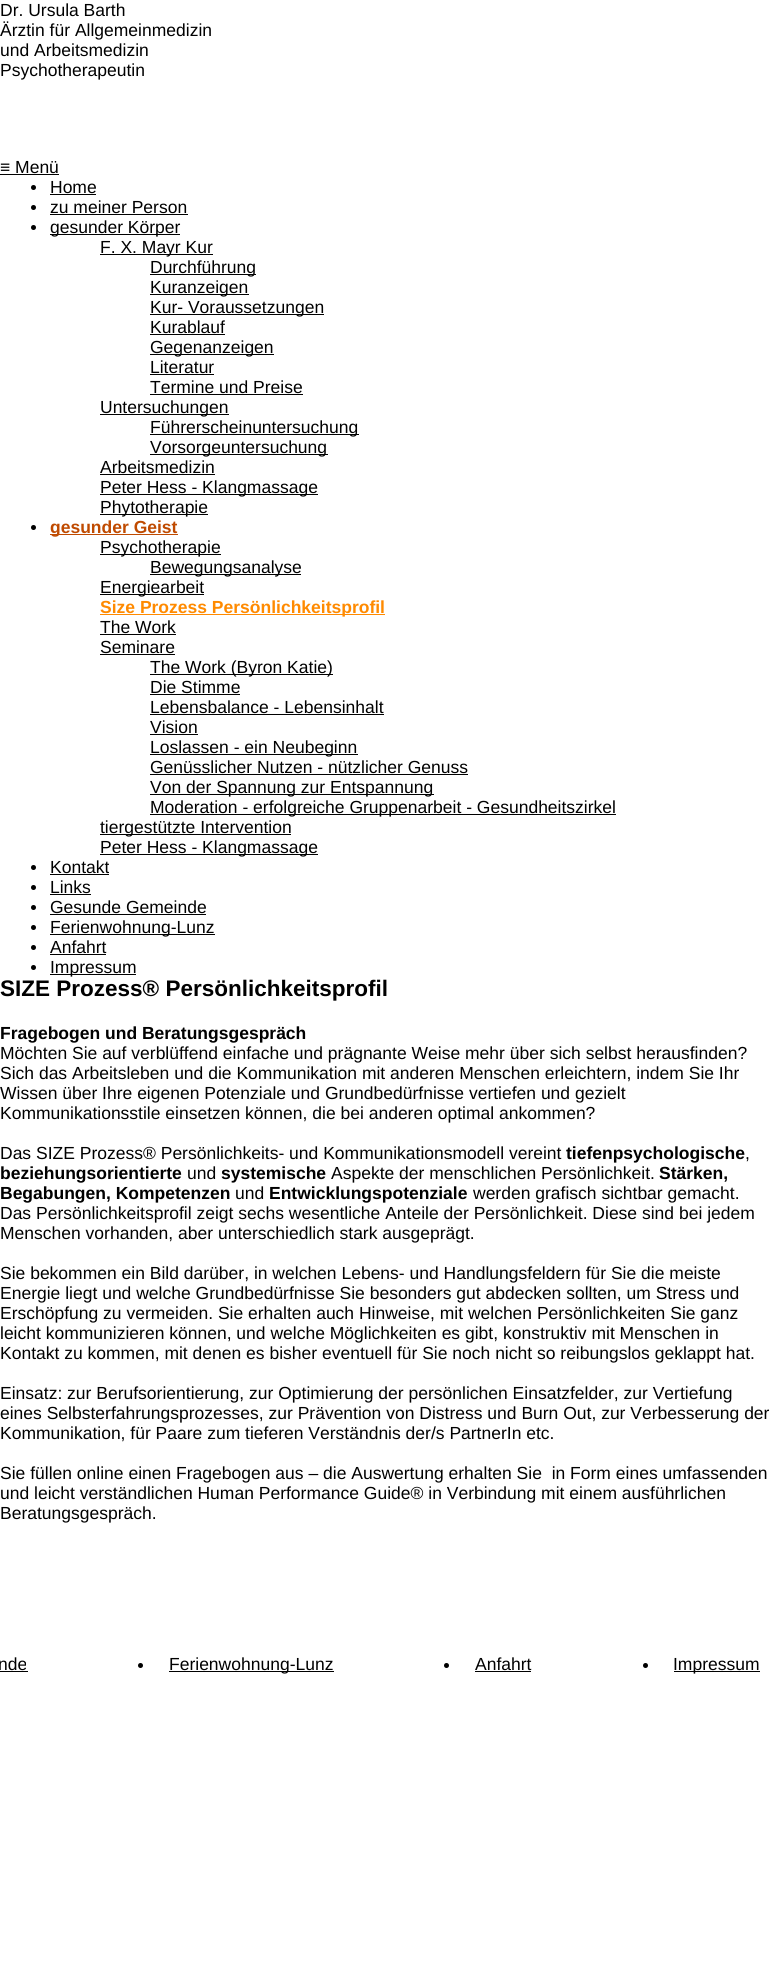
import math
import cairocffi as cairo

surface = cairo.ImageSurface(cairo.FORMAT_RGB24, 772, 1965)
ctx = cairo.Context(surface)
options = cairo.FontOptions()
options.set_hint_metrics(cairo.HINT_METRICS_OFF)
options.set_hint_style(cairo.HINT_STYLE_NONE)
ctx.set_font_options(options)
ctx.set_miter_limit(4)


def rgb(r, g, b):
    ctx.set_source_rgb(r / 255, g / 255, b / 255)


def face(family, size, italic, bold):
    ctx.select_font_face(family, cairo.FONT_SLANT_ITALIC if italic else cairo.FONT_SLANT_NORMAL, cairo.FONT_WEIGHT_BOLD if bold else cairo.FONT_WEIGHT_NORMAL)
    ctx.set_font_size(size)


def label(x, y, s):
    ctx.move_to(x, y)
    ctx.show_text(s)


def rect(x, y, w, h):
    ctx.rectangle(x, y, w, h)
    ctx.fill()


rgb(255, 255, 255)
ctx.paint()
face('Liberation Sans', 17.5, 0, 0)
rgb(0, 0, 0)
label(0, 16, 'Dr. Ursula Barth')
label(0, 36, 'Ärztin für Allgemeinmedizin')
label(0, 56, 'und Arbeitsmedizin')
label(0, 76, 'Psychotherapeutin')
label(0, 173, '≡ Menü')
rect(0, 174, 59, 1)
ctx.new_path()
ctx.arc(33.5, 187.5, 2.5, 0, 2 * math.pi)
ctx.fill()
label(50, 193, 'Home')
rect(50, 194, 46, 1)
ctx.new_path()
ctx.arc(33.5, 207.5, 2.5, 0, 2 * math.pi)
ctx.fill()
label(50, 213, 'zu meiner Person')
rect(50, 214, 138, 1)
ctx.new_path()
ctx.arc(33.5, 227.5, 2.5, 0, 2 * math.pi)
ctx.fill()
rect(50, 234, 130, 1)
label(50, 233, 'gesunder Körper')
rect(100, 254, 113, 1)
label(100, 253, 'F. X. Mayr Kur')
rect(150, 274, 106, 1)
label(150, 273, 'Durchführung')
rect(150, 294, 99, 1)
label(150, 293, 'Kuranzeigen')
rect(150, 314, 174, 1)
label(150, 313, 'Kur- Voraussetzungen')
label(150, 333, 'Kurablauf')
rect(150, 334, 75, 1)
rect(150, 354, 124, 1)
label(150, 353, 'Gegenanzeigen')
label(150, 373, 'Literatur')
rect(150, 374, 64, 1)
label(150, 393, 'Termine und Preise')
rect(150, 394, 153, 1)
rect(100, 414, 129, 1)
label(100, 413, 'Untersuchungen')
rect(150, 434, 209, 1)
label(150, 433, 'Führerscheinuntersuchung')
rect(150, 454, 178, 1)
label(150, 453, 'Vorsorgeuntersuchung')
label(100, 473, 'Arbeitsmedizin')
rect(100, 474, 115, 1)
rect(100, 494, 218, 1)
label(100, 493, 'Peter Hess - Klangmassage')
rect(100, 514, 108, 1)
label(100, 513, 'Phytotherapie')
ctx.new_path()
ctx.arc(33.5, 527.5, 2.5, 0, 2 * math.pi)
ctx.fill()
rgb(191, 74, 0)
rect(50, 534, 128, 1)
face('Liberation Sans', 17.5, 0, 1)
label(50, 533, 'gesunder Geist')
rgb(0, 0, 0)
rect(100, 554, 121, 1)
face('Liberation Sans', 17.5, 0, 0)
label(100, 553, 'Psychotherapie')
rect(150, 574, 151, 1)
label(150, 573, 'Bewegungsanalyse')
rect(100, 594, 104, 1)
label(100, 593, 'Energiearbeit')
rgb(255, 138, 0)
rect(100, 614, 285, 1)
face('Liberation Sans', 17.5, 0, 1)
label(100, 613, 'Size Prozess Persönlichkeitsprofil')
face('Liberation Sans', 17.5, 0, 0)
rgb(0, 0, 0)
label(100, 633, 'The Work')
rect(100, 634, 76, 1)
label(100, 653, 'Seminare')
rect(100, 654, 75, 1)
rect(150, 674, 183, 1)
label(150, 673, 'The Work (Byron Katie)')
label(150, 693, 'Die Stimme')
rect(150, 694, 90, 1)
label(150, 713, 'Lebensbalance - Lebensinhalt')
rect(150, 714, 234, 1)
label(150, 733, 'Vision')
rect(150, 734, 48, 1)
rect(150, 754, 208, 1)
label(150, 753, 'Loslassen - ein Neubeginn')
label(150, 773, 'Genüsslicher Nutzen - nützlicher Genuss')
rect(150, 774, 318, 1)
rect(150, 794, 284, 1)
label(150, 793, 'Von der Spannung zur Entspannung')
rect(150, 814, 466, 1)
label(150, 813, 'Moderation - erfolgreiche Gruppenarbeit - Gesundheitszirkel')
rect(100, 834, 191, 1)
label(100, 833, 'tiergestützte Intervention')
rect(100, 854, 218, 1)
label(100, 853, 'Peter Hess - Klangmassage')
ctx.new_path()
ctx.arc(33.5, 867.5, 2.5, 0, 2 * math.pi)
ctx.fill()
label(50, 873, 'Kontakt')
rect(50, 874, 59, 1)
ctx.new_path()
ctx.arc(33.5, 887.5, 2.5, 0, 2 * math.pi)
ctx.fill()
label(50, 893, 'Links')
rect(50, 894, 41, 1)
ctx.new_path()
ctx.arc(33.5, 907.5, 2.5, 0, 2 * math.pi)
ctx.fill()
label(50, 913, 'Gesunde Gemeinde')
rect(50, 914, 156, 1)
ctx.new_path()
ctx.arc(33.5, 927.5, 2.5, 0, 2 * math.pi)
ctx.fill()
rect(50, 934, 165, 1)
label(50, 933, 'Ferienwohnung-Lunz')
ctx.new_path()
ctx.arc(33.5, 947.5, 2.5, 0, 2 * math.pi)
ctx.fill()
label(50, 953, 'Anfahrt')
rect(50, 954, 56, 1)
ctx.new_path()
ctx.arc(33.5, 967.5, 2.5, 0, 2 * math.pi)
ctx.fill()
rect(50, 974, 86, 1)
label(50, 973, 'Impressum')
face('Liberation Sans', 22.5, 0, 1)
label(0, 996, 'SIZE Prozess® Persönlichkeitsprofil')
face('Liberation Sans', 17.5, 0, 1)
label(0, 1039, 'Fragebogen und Beratungsgespräch')
face('Liberation Sans', 17.5, 0, 0)
label(0, 1059, 'Möchten Sie auf verblüffend einfache und prägnante Weise mehr über sich selbst herausfinden?')
label(0, 1079, 'Sich das Arbeitsleben und die Kommunikation mit anderen Menschen erleichtern, indem Sie Ihr')
label(0, 1099, 'Wissen über Ihre eigenen Potenziale und Grundbedürfnisse vertiefen und gezielt')
label(0, 1119, 'Kommunikationsstile einsetzen können, die bei anderen optimal ankommen?')
label(0, 1159, 'Das SIZE Prozess® Persönlichkeits- und Kommunikationsmodell vereint')
face('Liberation Sans', 17.5, 0, 1)
label(566, 1159, 'tiefenpsychologische')
face('Liberation Sans', 17.5, 0, 0)
label(745, 1159, ',')
face('Liberation Sans', 17.5, 0, 1)
label(0, 1179, 'beziehungsorientierte')
face('Liberation Sans', 17.5, 0, 0)
label(187, 1179, 'und')
face('Liberation Sans', 17.5, 0, 1)
label(221, 1179, 'systemische')
face('Liberation Sans', 17.5, 0, 0)
label(331, 1179, 'Aspekte der menschlichen Persönlichkeit.')
face('Liberation Sans', 17.5, 0, 1)
label(659, 1179, 'Stärken,')
label(0, 1199, 'Begabungen, Kompetenzen')
face('Liberation Sans', 17.5, 0, 0)
label(235, 1199, 'und')
face('Liberation Sans', 17.5, 0, 1)
label(269, 1199, 'Entwicklungspotenziale')
face('Liberation Sans', 17.5, 0, 0)
label(473, 1199, 'werden grafisch sichtbar gemacht.')
label(0, 1219, 'Das Persönlichkeitsprofil zeigt sechs wesentliche Anteile der Persönlichkeit. Diese sind bei jedem')
label(0, 1239, 'Menschen vorhanden, aber unterschiedlich stark ausgeprägt.')
label(0, 1279, 'Sie bekommen ein Bild darüber, in welchen Lebens- und Handlungsfeldern für Sie die meiste')
label(0, 1299, 'Energie liegt und welche Grundbedürfnisse Sie besonders gut abdecken sollten, um Stress und')
label(0, 1319, 'Erschöpfung zu vermeiden. Sie erhalten auch Hinweise, mit welchen Persönlichkeiten Sie ganz')
label(0, 1339, 'leicht kommunizieren können, und welche Möglichkeiten es gibt, konstruktiv mit Menschen in')
label(0, 1359, 'Kontakt zu kommen, mit denen es bisher eventuell für Sie noch nicht so reibungslos geklappt hat.')
label(0, 1399, 'Einsatz: zur Berufsorientierung, zur Optimierung der persönlichen Einsatzfelder, zur Vertiefung')
label(0, 1419, 'eines Selbsterfahrungsprozesses, zur Prävention von Distress und Burn Out, zur Verbesserung der')
label(0, 1439, 'Kommunikation, für Paare zum tieferen Verständnis der/s PartnerIn etc.')
label(0, 1479, 'Sie füllen online einen Fragebogen aus – die Auswertung erhalten Sie  in Form eines umfassenden')
label(0, 1499, 'und leicht verständlichen Human Performance Guide® in Verbindung mit einem ausführlichen')
label(0, 1519, 'Beratungsgespräch.')
label(-2, 1670, 'nde')
rect(0, 1671, 28, 1)
ctx.new_path()
ctx.arc(140.5, 1665.5, 2.5, 0, 2 * math.pi)
ctx.fill()
rect(169, 1671, 165, 1)
label(169, 1670, 'Ferienwohnung-Lunz')
ctx.new_path()
ctx.arc(446.5, 1665.5, 2.5, 0, 2 * math.pi)
ctx.fill()
label(475, 1670, 'Anfahrt')
rect(475, 1671, 56, 1)
ctx.new_path()
ctx.arc(645.5, 1665.5, 2.5, 0, 2 * math.pi)
ctx.fill()
rect(674, 1671, 86, 1)
label(673, 1670, 'Impressum')
surface.write_to_png('render.png')
